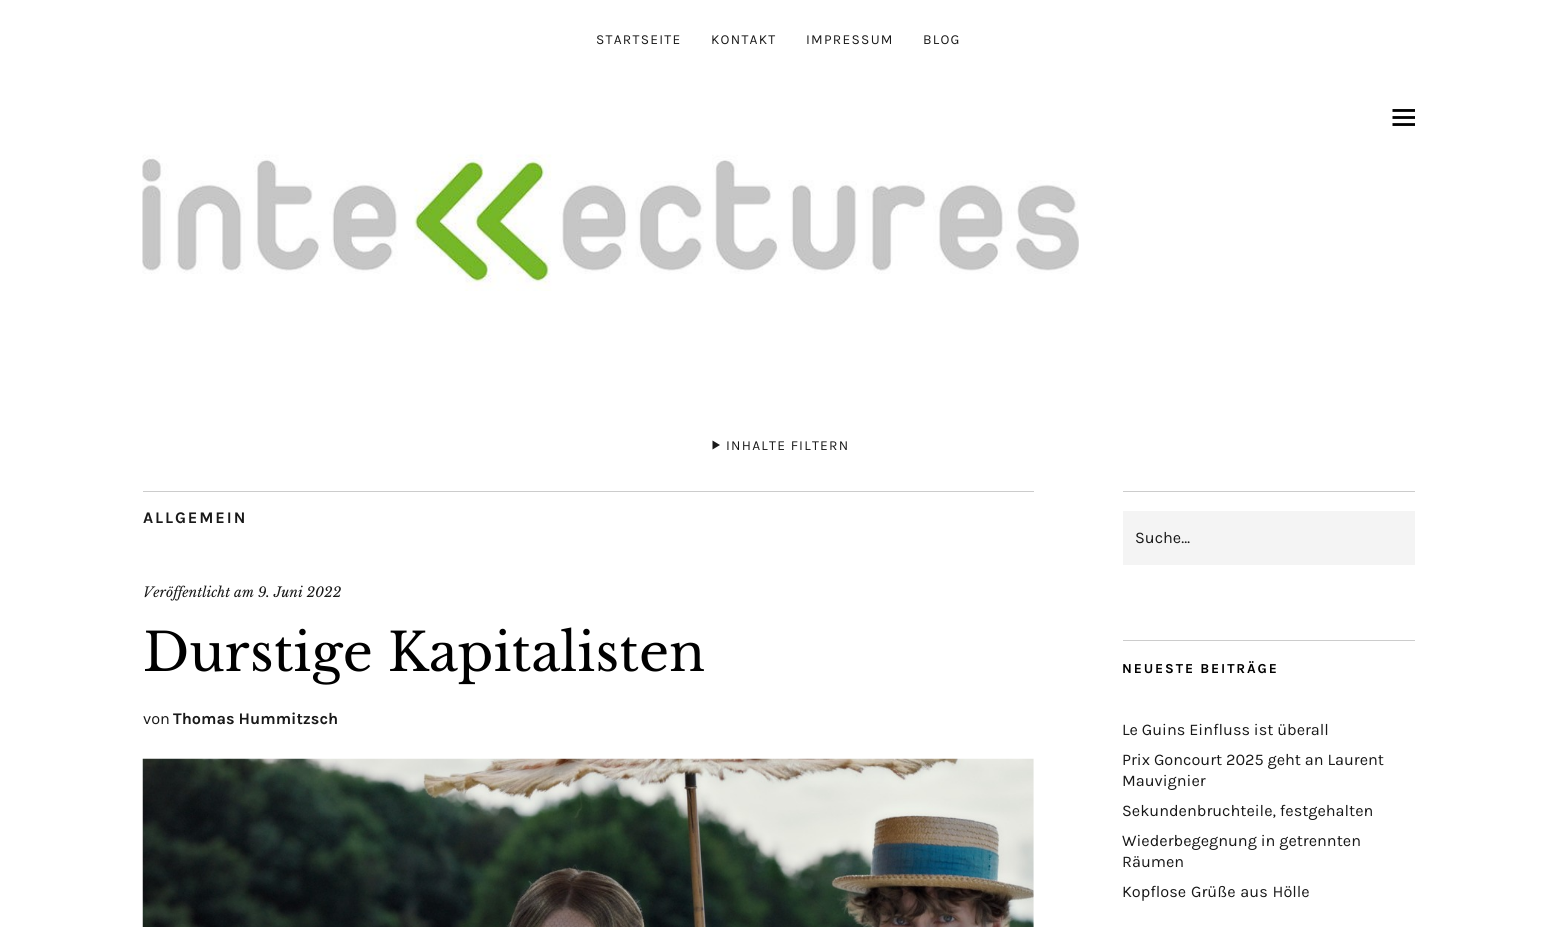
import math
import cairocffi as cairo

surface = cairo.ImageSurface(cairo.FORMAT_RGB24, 1557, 927)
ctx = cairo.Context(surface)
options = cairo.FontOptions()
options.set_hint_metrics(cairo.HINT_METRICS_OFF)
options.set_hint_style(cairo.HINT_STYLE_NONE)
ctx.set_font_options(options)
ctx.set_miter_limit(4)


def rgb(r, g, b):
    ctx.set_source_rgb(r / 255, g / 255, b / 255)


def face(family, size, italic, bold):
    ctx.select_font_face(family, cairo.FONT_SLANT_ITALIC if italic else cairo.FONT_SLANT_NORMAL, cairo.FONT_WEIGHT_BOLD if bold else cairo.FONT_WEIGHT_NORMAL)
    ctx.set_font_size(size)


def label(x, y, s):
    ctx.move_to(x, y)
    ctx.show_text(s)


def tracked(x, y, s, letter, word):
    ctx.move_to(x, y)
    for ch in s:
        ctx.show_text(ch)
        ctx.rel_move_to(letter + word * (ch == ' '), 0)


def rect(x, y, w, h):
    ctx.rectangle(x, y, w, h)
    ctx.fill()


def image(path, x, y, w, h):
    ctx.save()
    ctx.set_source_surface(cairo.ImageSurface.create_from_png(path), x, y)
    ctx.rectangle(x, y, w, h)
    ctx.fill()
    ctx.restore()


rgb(255, 255, 255)
ctx.paint()
face('Karla', 13.75, 0, 0)
rgb(25, 25, 25)
tracked(596, 44, 'STARTSEITE', 1.25, 0)
tracked(711, 44, 'KONTAKT', 1.25, 0)
tracked(806, 44, 'IMPRESSUM', 1.25, 0)
tracked(923, 44, 'BLOG', 1.25, 0)
image('image0.png', 1392, 109, 23, 17)
image('image1.png', 142, 154, 937, 137)
ctx.new_path()
ctx.move_to(712.5, 440.5)
ctx.line_to(720, 445)
ctx.line_to(712.5, 449.5)
ctx.close_path()
ctx.fill()
tracked(726, 450, 'INHALTE FILTERN', 1.25, 0)
rgb(204, 204, 204)
rect(143, 491, 891, 1)
face('Karla', 16.25, 0, 1)
rgb(25, 25, 25)
tracked(143, 523, 'ALLGEMEIN', 1.9, 0)
face('Libre Baskerville', 13.75, 1, 0)
label(143, 597, 'Veröffentlicht am 9. Juni 2022')
face('Libre Baskerville', 52.5, 0, 0)
rgb(0, 0, 0)
label(143, 671, 'Durstige Kapitalisten')
face('Karla', 16.25, 0, 0)
rgb(25, 25, 25)
label(143, 724, 'von')
face('Karla', 16.25, 0, 1)
label(173, 724, 'Thomas Hummitzsch')
image('image2.png', 142, 758, 892, 169)
rgb(204, 204, 204)
rect(1123, 491, 292, 1)
rect(1123, 640, 292, 1)
rgb(244, 244, 244)
rect(1123, 511, 292, 54)
face('Karla', 16.25, 0, 0)
rgb(25, 25, 25)
label(1135, 543, 'Suche…')
face('Karla', 13.75, 0, 1)
rgb(0, 0, 0)
tracked(1122, 673, 'NEUESTE BEITRÄGE', 1.9, 0)
face('Karla', 16.25, 0, 0)
rgb(25, 25, 25)
label(1122, 735, 'Le Guins Einfluss ist überall')
label(1122, 765, 'Prix Goncourt 2025 geht an Laurent')
label(1122, 786, 'Mauvignier')
label(1122, 816, 'Sekundenbruchteile, festgehalten')
label(1122, 846, 'Wiederbegegnung in getrennten')
label(1122, 867, 'Räumen')
tracked(1122, 897, 'Kopflose Grüße aus Hölle', 0, 1)
surface.write_to_png('render.png')
